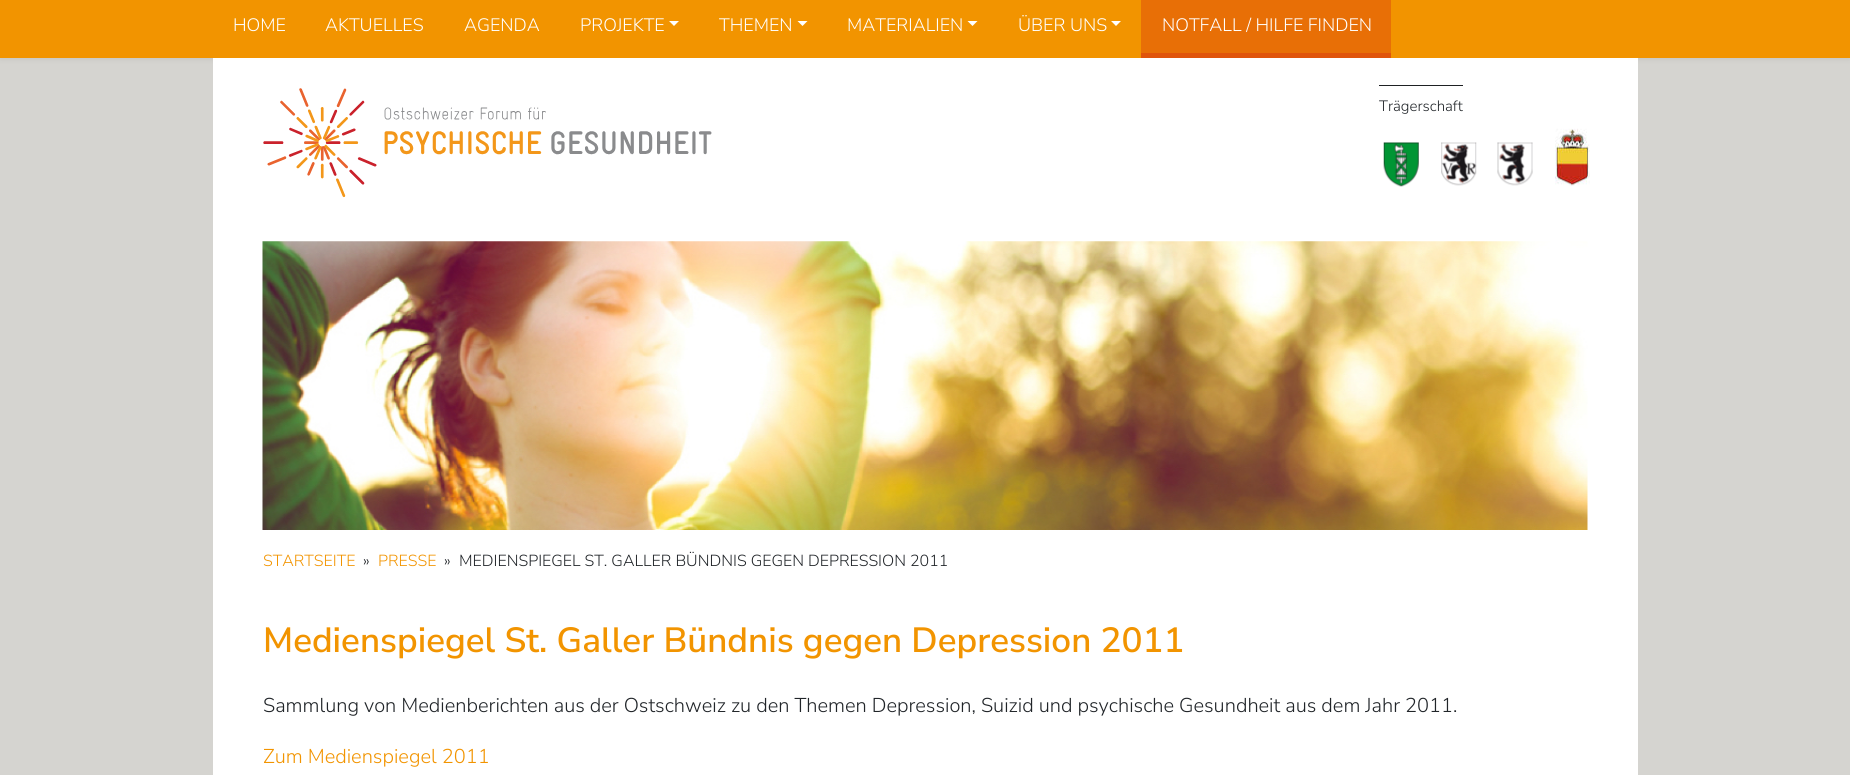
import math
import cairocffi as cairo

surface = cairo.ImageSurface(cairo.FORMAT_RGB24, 1850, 775)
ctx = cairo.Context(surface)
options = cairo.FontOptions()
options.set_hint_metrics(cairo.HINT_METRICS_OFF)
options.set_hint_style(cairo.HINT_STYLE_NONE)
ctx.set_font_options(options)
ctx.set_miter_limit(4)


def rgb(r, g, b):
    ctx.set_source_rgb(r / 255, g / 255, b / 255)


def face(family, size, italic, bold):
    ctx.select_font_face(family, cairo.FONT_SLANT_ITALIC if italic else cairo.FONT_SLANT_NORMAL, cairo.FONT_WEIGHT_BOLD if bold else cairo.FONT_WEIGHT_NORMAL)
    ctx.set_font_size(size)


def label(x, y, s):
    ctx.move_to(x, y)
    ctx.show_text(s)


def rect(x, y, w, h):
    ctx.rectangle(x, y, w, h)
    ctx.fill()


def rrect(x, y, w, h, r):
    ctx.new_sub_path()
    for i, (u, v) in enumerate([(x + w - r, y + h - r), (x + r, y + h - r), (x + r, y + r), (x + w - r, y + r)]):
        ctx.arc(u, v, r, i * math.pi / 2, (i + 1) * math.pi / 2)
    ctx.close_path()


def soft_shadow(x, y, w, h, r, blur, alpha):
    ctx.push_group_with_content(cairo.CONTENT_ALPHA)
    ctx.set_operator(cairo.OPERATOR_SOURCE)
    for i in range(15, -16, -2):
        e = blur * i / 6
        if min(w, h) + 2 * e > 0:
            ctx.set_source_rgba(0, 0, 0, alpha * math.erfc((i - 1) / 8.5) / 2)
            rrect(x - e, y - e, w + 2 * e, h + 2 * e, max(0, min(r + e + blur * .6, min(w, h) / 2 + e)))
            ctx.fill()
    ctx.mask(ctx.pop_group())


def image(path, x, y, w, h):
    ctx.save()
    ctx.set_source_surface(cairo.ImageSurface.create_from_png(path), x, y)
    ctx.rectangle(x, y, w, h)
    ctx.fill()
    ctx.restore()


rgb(213, 212, 208)
ctx.paint()
rgb(30, 33, 35)
soft_shadow(0, 3, 1850, 57, 0, 2.5, 0.07)
rgb(242, 148, 0)
rect(0, 0, 1850, 58)
face('Nunito Sans Light', 18, 0, 0)
rgb(255, 255, 255)
label(233, 31, 'HOME')
label(325, 31, 'AKTUELLES')
label(464, 31, 'AGENDA')
label(580, 31, 'PROJEKTE')
ctx.new_path()
ctx.move_to(669, 21)
ctx.line_to(679, 21)
ctx.line_to(674, 26)
ctx.close_path()
ctx.fill()
label(719, 31, 'THEMEN')
ctx.new_path()
ctx.move_to(797.5, 21)
ctx.line_to(807.5, 21)
ctx.line_to(802.5, 26)
ctx.close_path()
ctx.fill()
label(847, 31, 'MATERIALIEN')
ctx.new_path()
ctx.move_to(967.5, 21)
ctx.line_to(977.5, 21)
ctx.line_to(972.5, 26)
ctx.close_path()
ctx.fill()
label(1018, 31, 'ÜBER UNS')
ctx.new_path()
ctx.move_to(1111, 21)
ctx.line_to(1121, 21)
ctx.line_to(1116, 26)
ctx.close_path()
ctx.fill()
rgb(232, 111, 6)
rect(1141, 0, 250, 53)
rgb(224, 84, 11)
rect(1141, 53, 250, 5)
rgb(255, 255, 255)
label(1162, 31, 'NOTFALL / HILFE FINDEN')
rect(213, 58, 1425, 717)
image('image0.png', 263, 88, 449, 110)
face('Nunito Sans Light', 15, 0, 0)
rgb(33, 37, 41)
label(1379, 111, 'Trägerschaft')
rgb(30, 33, 35)
rect(1379, 85, 84, 1)
image('image1.png', 1383, 142, 36, 45)
image('image2.png', 1441, 142, 36, 44)
image('image3.png', 1497, 142, 36, 44)
image('image4.png', 1555, 128, 35, 58)
image('image5.png', 262, 241, 1326, 289)
face('Nunito Sans Light', 16, 0, 0)
rgb(242, 148, 0)
label(263, 566, 'STARTSEITE')
rgb(33, 37, 41)
label(363, 566, '»')
rgb(242, 148, 0)
label(378, 566, 'PRESSE')
rgb(33, 37, 41)
label(444, 566, '»')
label(459, 566, 'MEDIENSPIEGEL ST. GALLER BÜNDNIS GEGEN DEPRESSION 2011')
face('Nunito Sans SemiBold', 35, 0, 0)
rgb(242, 148, 0)
label(263, 652, 'Medienspiegel St. Galler Bündnis gegen Depression 2011')
face('Nunito Sans Light', 20, 0, 0)
rgb(33, 37, 41)
label(263, 712, 'Sammlung von Medienberichten aus der Ostschweiz zu den Themen Depression, Suizid und psychische Gesundheit aus dem Jahr 2011.')
rgb(242, 148, 0)
label(263, 763, 'Zum Medienspiegel 2011')
surface.write_to_png('render.png')
